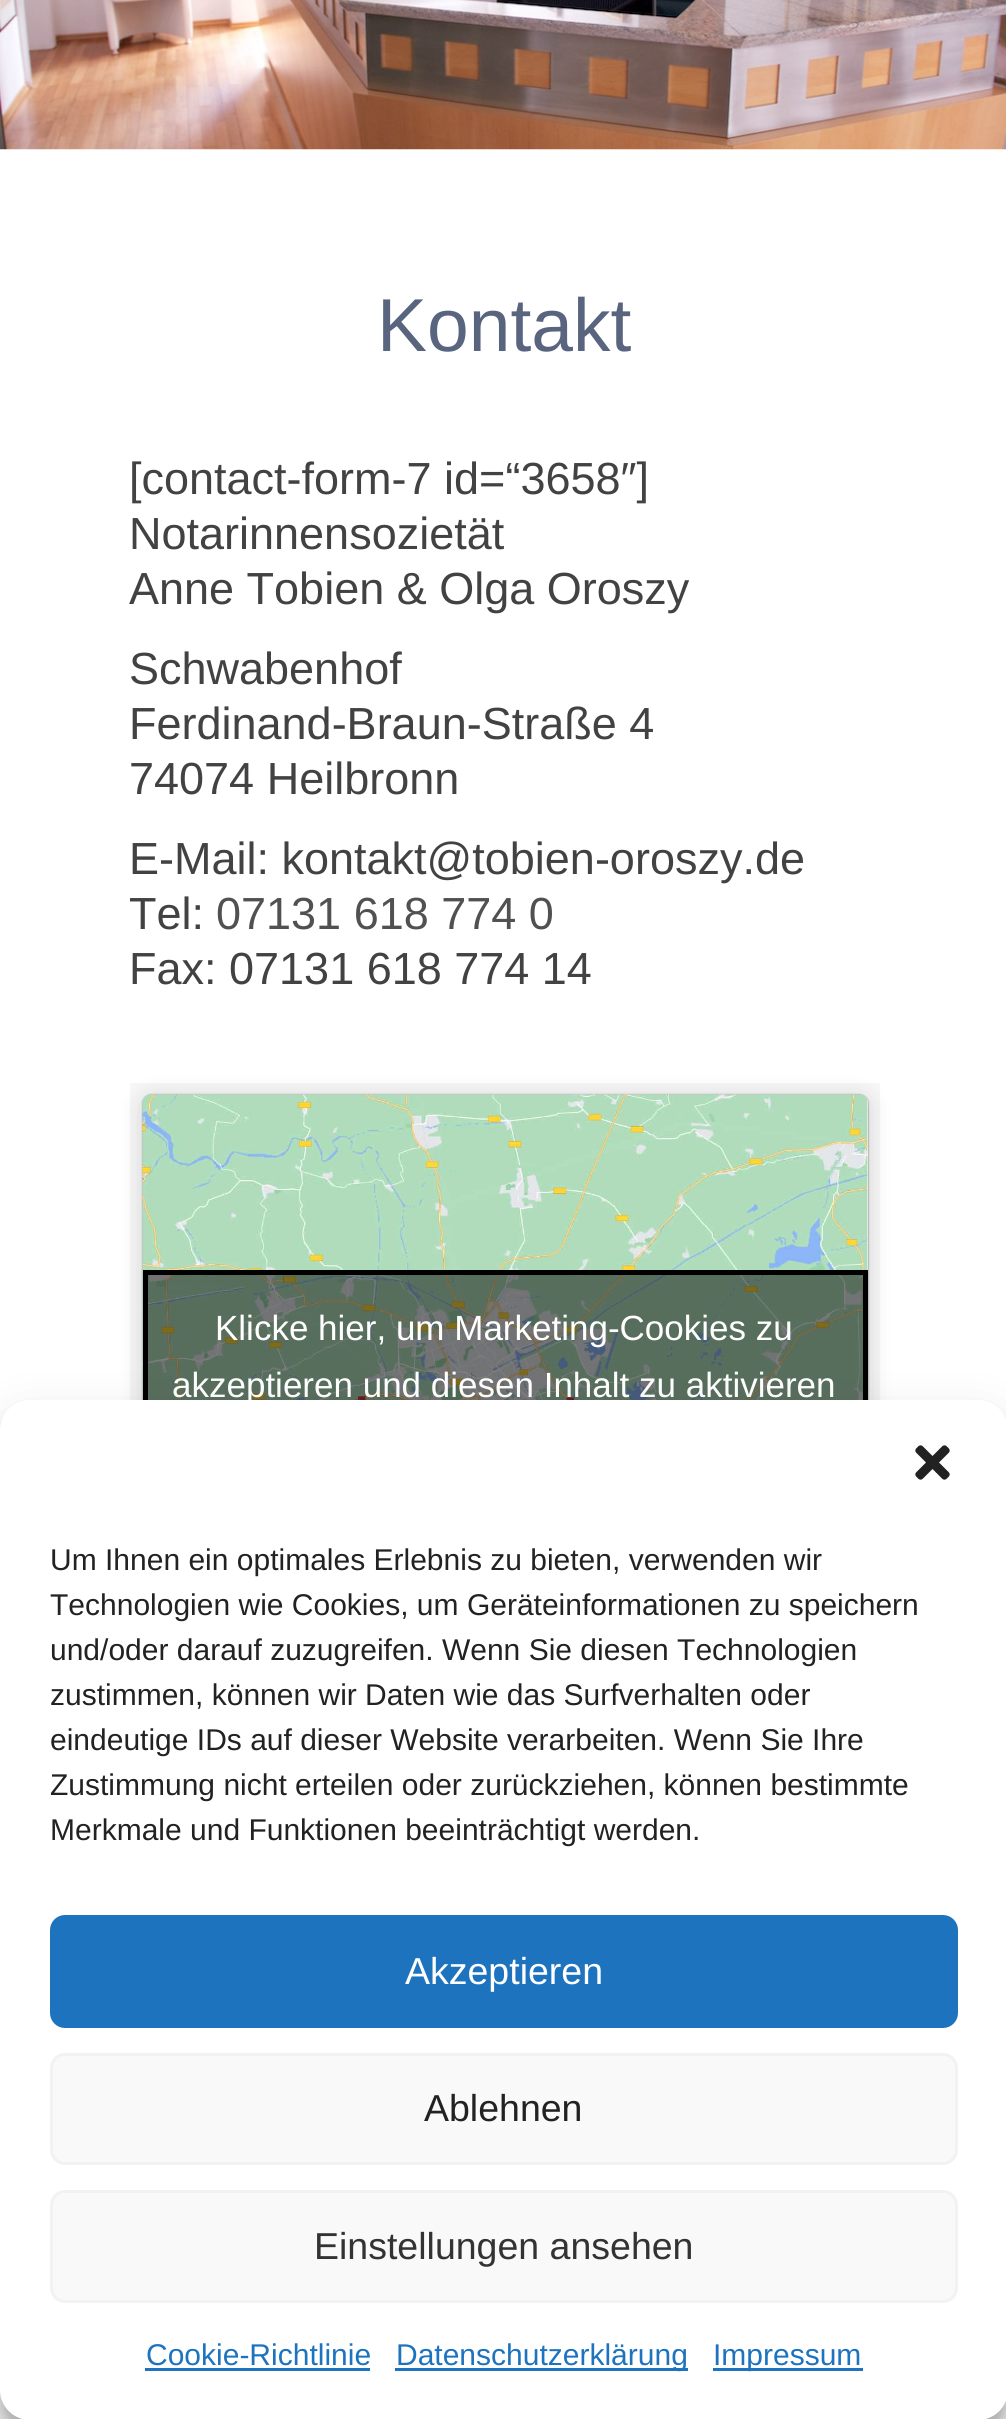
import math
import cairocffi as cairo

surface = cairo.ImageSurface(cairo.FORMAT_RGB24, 1006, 2419)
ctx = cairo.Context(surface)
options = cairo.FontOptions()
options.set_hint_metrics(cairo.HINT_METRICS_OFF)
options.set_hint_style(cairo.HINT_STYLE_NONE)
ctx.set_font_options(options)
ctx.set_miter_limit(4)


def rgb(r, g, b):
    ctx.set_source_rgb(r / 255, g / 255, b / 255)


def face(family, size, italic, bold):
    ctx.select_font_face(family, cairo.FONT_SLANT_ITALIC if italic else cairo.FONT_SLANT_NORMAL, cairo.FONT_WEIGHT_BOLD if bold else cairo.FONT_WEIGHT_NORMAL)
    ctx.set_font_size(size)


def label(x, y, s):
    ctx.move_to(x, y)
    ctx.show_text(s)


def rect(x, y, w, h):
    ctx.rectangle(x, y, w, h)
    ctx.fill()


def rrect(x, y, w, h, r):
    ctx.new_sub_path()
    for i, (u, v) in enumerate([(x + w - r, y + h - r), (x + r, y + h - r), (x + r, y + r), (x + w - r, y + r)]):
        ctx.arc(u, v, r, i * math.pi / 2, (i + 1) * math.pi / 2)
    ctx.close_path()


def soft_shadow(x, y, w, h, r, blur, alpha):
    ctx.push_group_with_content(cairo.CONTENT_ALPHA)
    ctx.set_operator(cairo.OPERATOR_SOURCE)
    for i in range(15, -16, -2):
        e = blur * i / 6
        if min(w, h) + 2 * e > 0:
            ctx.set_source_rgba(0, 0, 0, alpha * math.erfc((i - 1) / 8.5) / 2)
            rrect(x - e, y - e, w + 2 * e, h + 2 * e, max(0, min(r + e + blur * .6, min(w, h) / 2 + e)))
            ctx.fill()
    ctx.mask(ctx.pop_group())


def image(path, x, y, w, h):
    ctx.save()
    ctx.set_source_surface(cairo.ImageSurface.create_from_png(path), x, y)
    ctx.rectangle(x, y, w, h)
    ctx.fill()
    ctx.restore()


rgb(255, 255, 255)
ctx.paint()
image('image0.png', 0, 0, 1006, 150)
face('Liberation Sans', 75, 0, 0)
rgb(89, 100, 127)
label(377, 351, 'Kontakt')
face('Liberation Sans', 45, 0, 0)
rgb(66, 66, 66)
label(129, 494, '[contact-form-7 id=“3658″]')
label(129, 549, 'Notarinnensozietät')
label(129, 604, 'Anne Tobien & Olga Oroszy')
label(129, 684, 'Schwabenhof')
label(129, 739, 'Ferdinand-Braun-Straße 4')
label(129, 794, '74074 Heilbronn')
label(129, 874, 'E-Mail: kontakt@tobien-oroszy.de')
label(129, 929, 'Tel:')
rgb(81, 81, 81)
label(216, 929, '07131 618 774 0')
rgb(66, 66, 66)
label(129, 984, 'Fax: 07131 618 774 14')
rgb(247, 247, 247)
rect(130, 1083, 750, 317)
rgb(0, 0, 0)
soft_shadow(143, 1098, 725, 522, 8, 12.5, 0.15)
soft_shadow(143, 1095, 725, 523, 8, 1, 0.5)
rgb(255, 255, 255)
rrect(143, 1095, 725, 523, 8)
ctx.fill()
image('image1.png', 142, 1094, 726, 306)
ctx.set_source_rgba(0, 0, 0, 0.5)
rect(148, 1275, 715, 125)
ctx.rectangle(145.5, 1272.5, 720, 170)
rgb(0, 0, 0)
ctx.set_line_width(5)
ctx.stroke()
face('Liberation Sans', 35, 0, 0)
rgb(255, 255, 255)
label(215, 1340, 'Klicke hier, um Marketing-Cookies zu')
label(172, 1397, 'akzeptieren und diesen Inhalt zu aktivieren')
rgb(0, 0, 0)
soft_shadow(0, 1415, 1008, 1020, 30, 7.5, 0.23)
soft_shadow(0, 1425, 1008, 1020, 30, 25, 0.19)
rgb(255, 255, 255)
rrect(0, 1400, 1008, 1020, 30)
ctx.fill()
image('image2.png', 915, 1445, 35, 35)
face('Liberation Sans', 30, 0, 0)
rgb(34, 34, 34)
label(50, 1570, 'Um Ihnen ein optimales Erlebnis zu bieten, verwenden wir')
label(50, 1615, 'Technologien wie Cookies, um Geräteinformationen zu speichern')
label(50, 1660, 'und/oder darauf zuzugreifen. Wenn Sie diesen Technologien')
label(50, 1705, 'zustimmen, können wir Daten wie das Surfverhalten oder')
label(50, 1750, 'eindeutige IDs auf dieser Website verarbeiten. Wenn Sie Ihre')
label(50, 1795, 'Zustimmung nicht erteilen oder zurückziehen, können bestimmte')
label(50, 1840, 'Merkmale und Funktionen beeinträchtigt werden.')
rgb(30, 115, 190)
rrect(51.5, 1916.5, 905, 110, 13.5)
ctx.fill_preserve()
ctx.set_line_width(3)
ctx.stroke()
face('Liberation Sans', 37.5, 0, 0)
rgb(255, 255, 255)
label(405, 1984, 'Akzeptieren')
rgb(249, 249, 249)
rrect(51.5, 2054.5, 905, 109, 13.5)
ctx.fill_preserve()
rgb(242, 242, 242)
ctx.stroke()
rgb(34, 34, 34)
label(424, 2121, 'Ablehnen')
rgb(249, 249, 249)
rrect(51.5, 2191.5, 905, 110, 13.5)
ctx.fill_preserve()
rgb(242, 242, 242)
ctx.stroke()
rgb(51, 51, 51)
label(314, 2259, 'Einstellungen ansehen')
face('Liberation Sans', 30, 0, 0)
rgb(30, 115, 190)
label(146, 2365, 'Cookie-Richtlinie')
rect(145, 2368, 225, 3)
rect(395, 2368, 293, 3)
label(396, 2365, 'Datenschutzerklärung')
rect(713, 2368, 150, 3)
label(713, 2365, 'Impressum')
surface.write_to_png('render.png')
